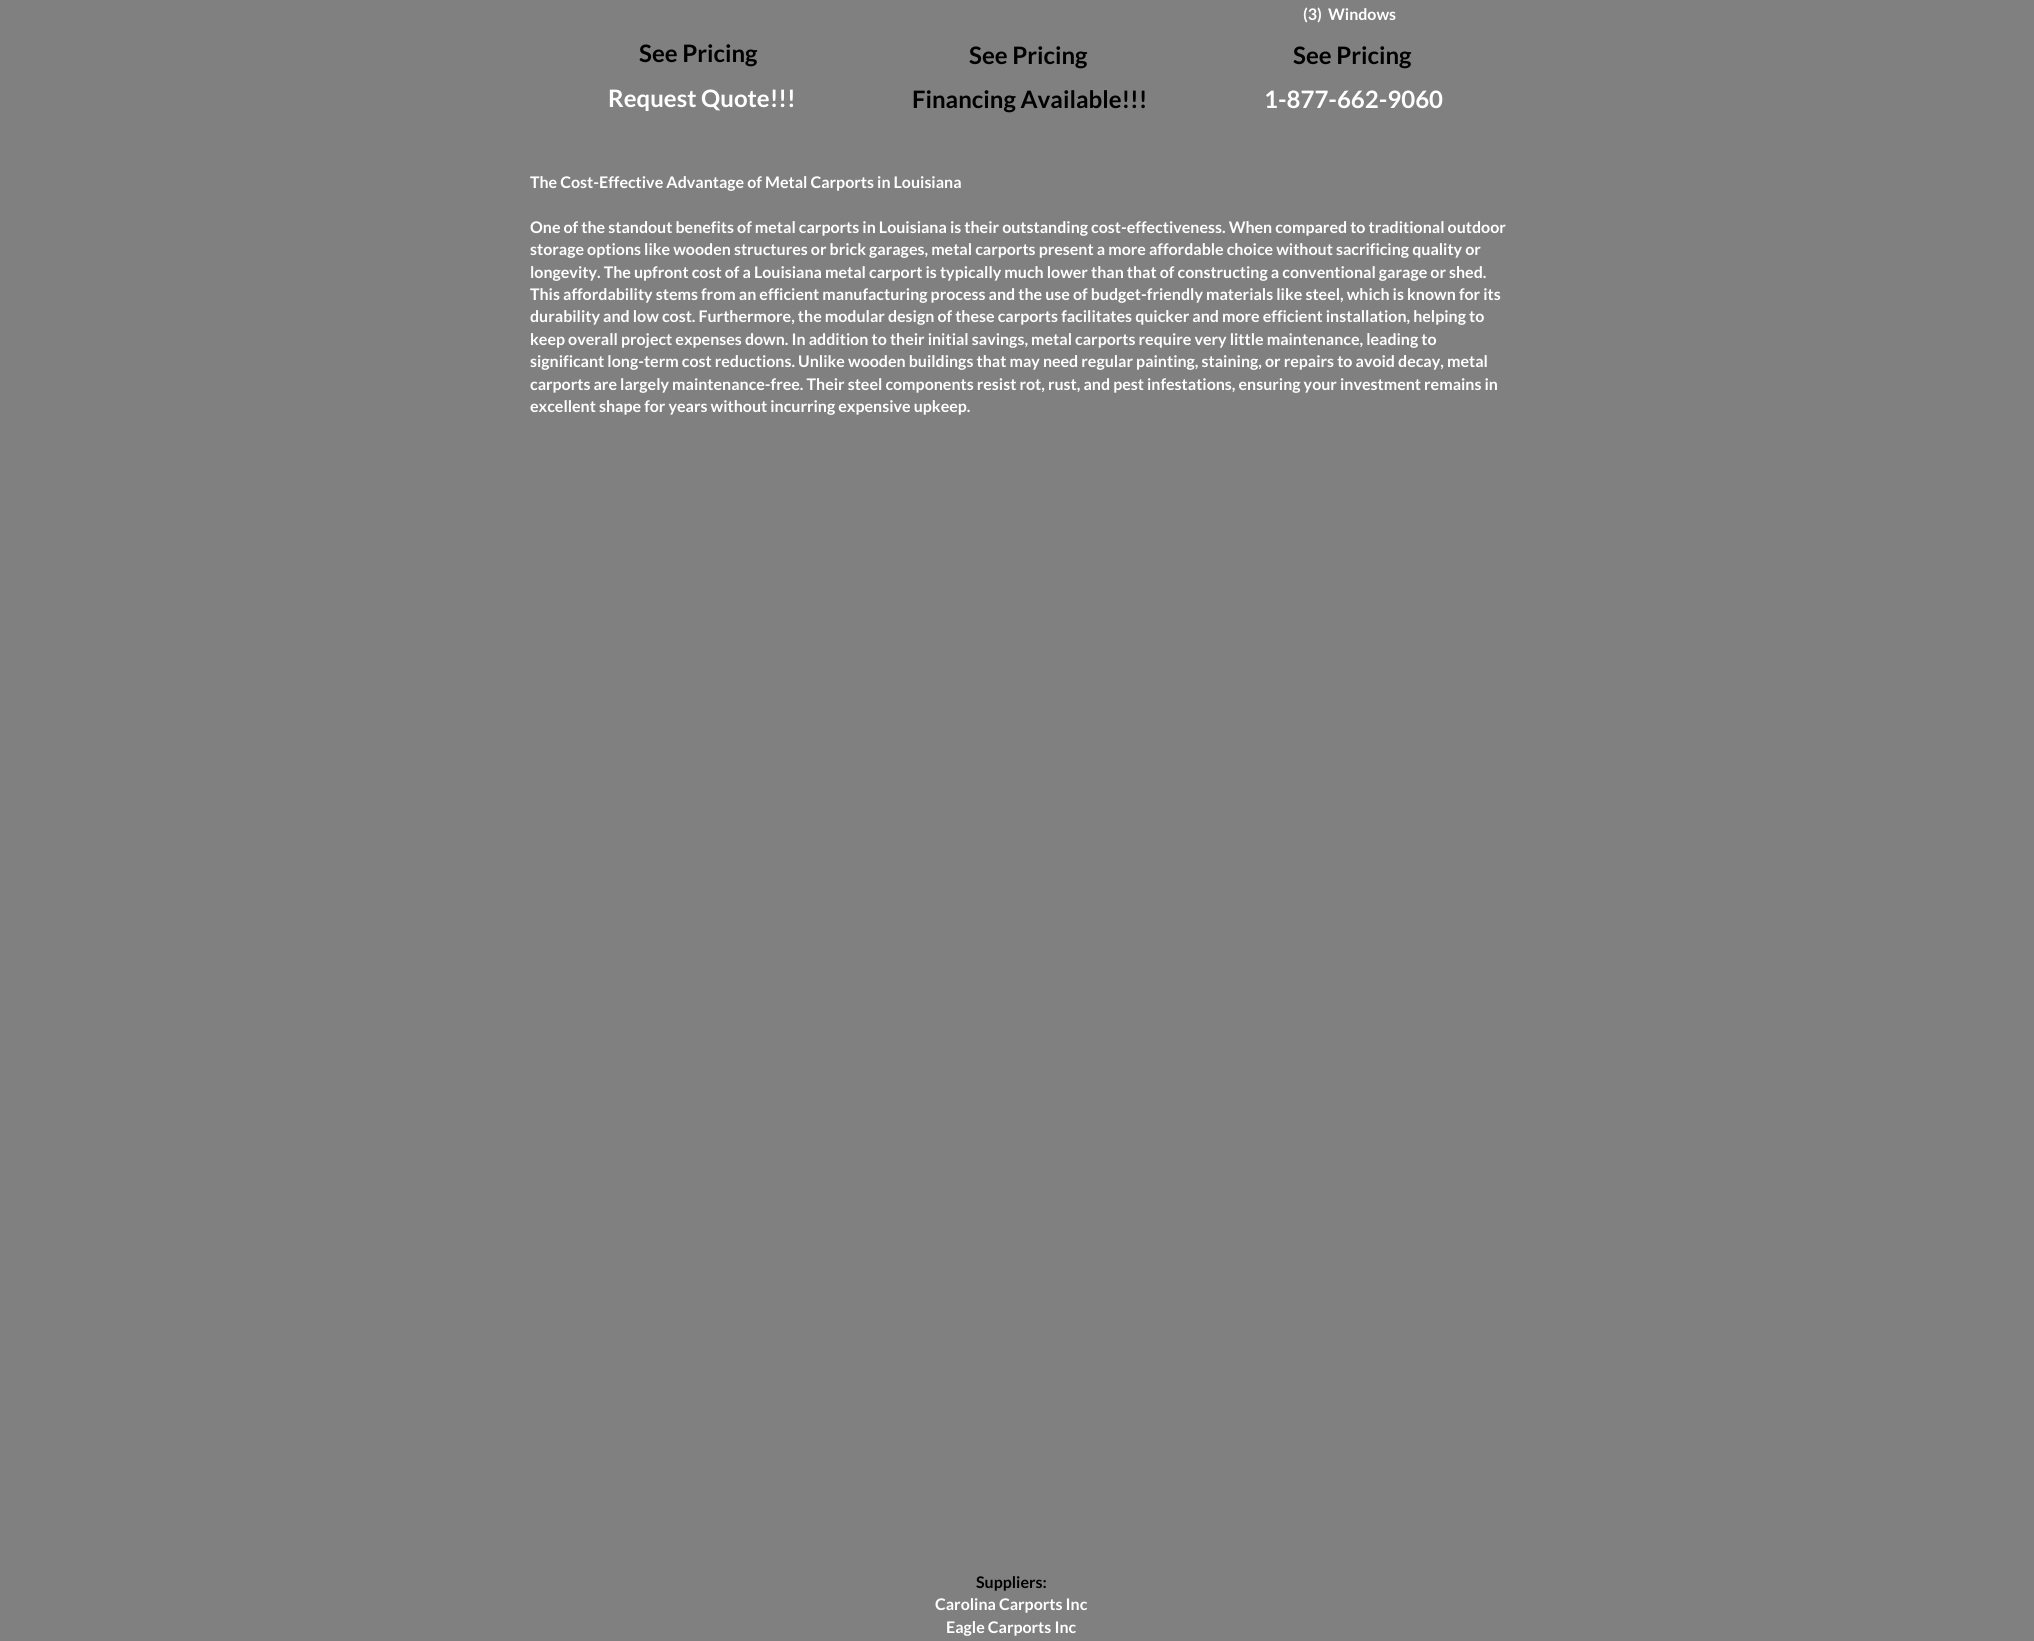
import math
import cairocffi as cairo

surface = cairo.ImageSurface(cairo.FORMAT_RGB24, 2034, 1641)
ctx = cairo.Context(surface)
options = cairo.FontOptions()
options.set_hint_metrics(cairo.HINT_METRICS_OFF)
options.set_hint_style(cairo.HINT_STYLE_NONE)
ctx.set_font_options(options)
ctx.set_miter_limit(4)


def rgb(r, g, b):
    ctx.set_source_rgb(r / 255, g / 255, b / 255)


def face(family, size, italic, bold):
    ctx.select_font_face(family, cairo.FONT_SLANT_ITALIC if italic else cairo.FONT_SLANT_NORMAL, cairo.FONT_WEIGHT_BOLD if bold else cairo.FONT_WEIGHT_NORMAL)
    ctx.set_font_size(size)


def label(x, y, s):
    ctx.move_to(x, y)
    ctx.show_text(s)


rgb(128, 128, 128)
ctx.paint()
face('Lato', 16, 0, 1)
rgb(255, 255, 255)
label(1303, 20, '(3)  Windows')
face('Lato', 24, 0, 1)
rgb(0, 0, 0)
label(639, 62, 'See Pricing')
label(969, 64, 'See Pricing')
label(1293, 64, 'See Pricing')
rgb(255, 255, 255)
label(608, 107, 'Request Quote!!!')
rgb(0, 0, 0)
label(912, 108, 'Financing Available!!!')
rgb(255, 255, 255)
label(1264, 108, '1-877-662-9060')
face('Lato', 16, 0, 1)
label(530, 188, 'The Cost-Effective Advantage of Metal Carports in Louisiana')
label(530, 233, 'One of the standout benefits of metal carports in Louisiana is their outstanding cost-effectiveness. When compared to traditional outdoor')
label(530, 255, 'storage options like wooden structures or brick garages, metal carports present a more affordable choice without sacrificing quality or')
label(530, 278, 'longevity. The upfront cost of a Louisiana metal carport is typically much lower than that of constructing a conventional garage or shed.')
label(530, 300, 'This affordability stems from an efficient manufacturing process and the use of budget-friendly materials like steel, which is known for its')
label(530, 322, 'durability and low cost. Furthermore, the modular design of these carports facilitates quicker and more efficient installation, helping to')
label(530, 345, 'keep overall project expenses down. In addition to their initial savings, metal carports require very little maintenance, leading to')
label(530, 367, 'significant long-term cost reductions. Unlike wooden buildings that may need regular painting, staining, or repairs to avoid decay, metal')
label(530, 390, 'carports are largely maintenance-free. Their steel components resist rot, rust, and pest infestations, ensuring your investment remains in')
label(530, 412, 'excellent shape for years without incurring expensive upkeep.')
rgb(0, 0, 0)
label(976, 1588, 'Suppliers:')
rgb(255, 255, 255)
label(935, 1610, 'Carolina Carports Inc')
label(946, 1633, 'Eagle Carports Inc')
surface.write_to_png('render.png')
